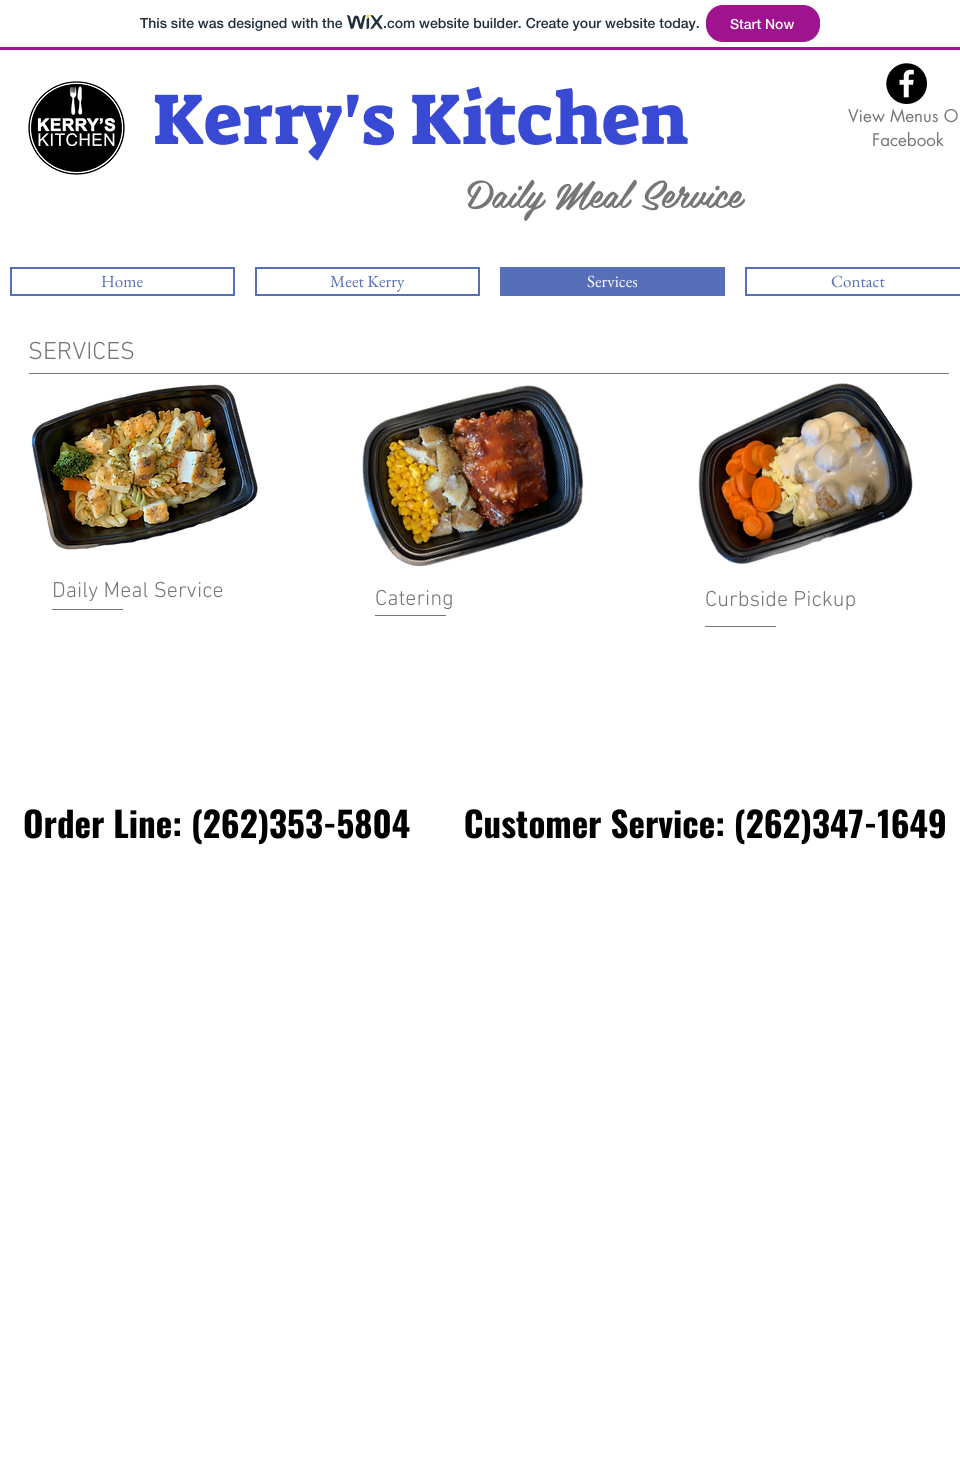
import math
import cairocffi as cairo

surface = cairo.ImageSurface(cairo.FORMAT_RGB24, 960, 1466)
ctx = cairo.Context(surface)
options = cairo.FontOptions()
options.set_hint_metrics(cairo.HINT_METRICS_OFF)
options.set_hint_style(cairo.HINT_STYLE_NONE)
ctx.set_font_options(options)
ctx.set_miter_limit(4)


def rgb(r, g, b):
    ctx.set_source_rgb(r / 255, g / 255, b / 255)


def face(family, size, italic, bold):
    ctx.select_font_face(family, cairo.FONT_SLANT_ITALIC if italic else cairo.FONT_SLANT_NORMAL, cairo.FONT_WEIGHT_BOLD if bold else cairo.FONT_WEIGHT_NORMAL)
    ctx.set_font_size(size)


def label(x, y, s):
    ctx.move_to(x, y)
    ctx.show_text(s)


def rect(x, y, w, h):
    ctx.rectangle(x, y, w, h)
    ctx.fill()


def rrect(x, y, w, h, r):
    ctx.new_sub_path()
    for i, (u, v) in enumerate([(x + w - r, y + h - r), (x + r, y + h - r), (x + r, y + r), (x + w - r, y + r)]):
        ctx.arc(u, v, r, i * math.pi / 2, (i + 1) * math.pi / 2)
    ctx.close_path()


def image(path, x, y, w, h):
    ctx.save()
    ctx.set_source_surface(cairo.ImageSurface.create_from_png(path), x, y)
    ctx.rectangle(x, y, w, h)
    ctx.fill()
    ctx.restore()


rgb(255, 255, 255)
ctx.paint()
rgb(160, 19, 142)
rect(0, 47, 960, 3)
face('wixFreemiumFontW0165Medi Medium', 14, 0, 0)
rgb(32, 48, 60)
label(140, 28, 'This site was designed with the')
image('image0.png', 347, 15, 36, 15)
label(383, 28, '.com website builder. Create your website today.')
rgb(160, 19, 142)
rrect(706.5, 5.5, 113, 36, 16.5)
ctx.fill_preserve()
ctx.set_line_width(1)
ctx.stroke()
rgb(255, 255, 255)
label(730, 29, 'Start Now')
image('image1.png', 28, 81, 97, 95)
face('Suez One', 73, 0, 0)
rgb(56, 74, 211)
label(153, 144, 'Kerry\'s Kitchen')
image('image2.png', 886, 63, 41, 41)
face('futura', 17, 0, 0)
rgb(118, 118, 118)
label(848, 122, 'View Menus O')
label(872, 146, 'Facebook')
face('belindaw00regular', 38, 0, 0)
label(467, 208, 'Daily Meal Service')
ctx.rectangle(11, 268, 223, 27)
rgb(86, 111, 184)
ctx.set_line_width(2)
ctx.stroke()
face('EB Garamond', 17, 0, 0)
label(101, 287, 'Home')
ctx.rectangle(256, 268, 223, 27)
ctx.stroke()
label(330, 287, 'Meet Kerry')
rect(500, 267, 225, 29)
rgb(255, 255, 255)
label(587, 287, 'Services')
ctx.rectangle(746, 268, 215, 27)
rgb(86, 111, 184)
ctx.stroke()
label(831, 287, 'Contact')
face('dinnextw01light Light', 25, 0, 0)
rgb(118, 118, 118)
label(28, 359, 'SERVICES')
rect(29, 373, 920, 1)
image('image3.png', 31, 384, 227, 166)
image('image4.png', 362, 385, 222, 182)
image('image5.png', 698, 383, 215, 182)
face('dinnextw01light Light', 22, 0, 0)
label(52, 597, 'Daily Meal Service')
label(375, 605, 'Catering')
label(705, 606, 'Curbside Pickup')
rect(52, 609, 71, 1)
rect(375, 615, 71, 1)
rect(705, 626, 71, 1)
face('Oswald', 35, 0, 1)
rgb(0, 0, 0)
label(23, 838, 'Order Line: (262)353-5804      Customer Service: (262)347-1649')
surface.write_to_png('render.png')
